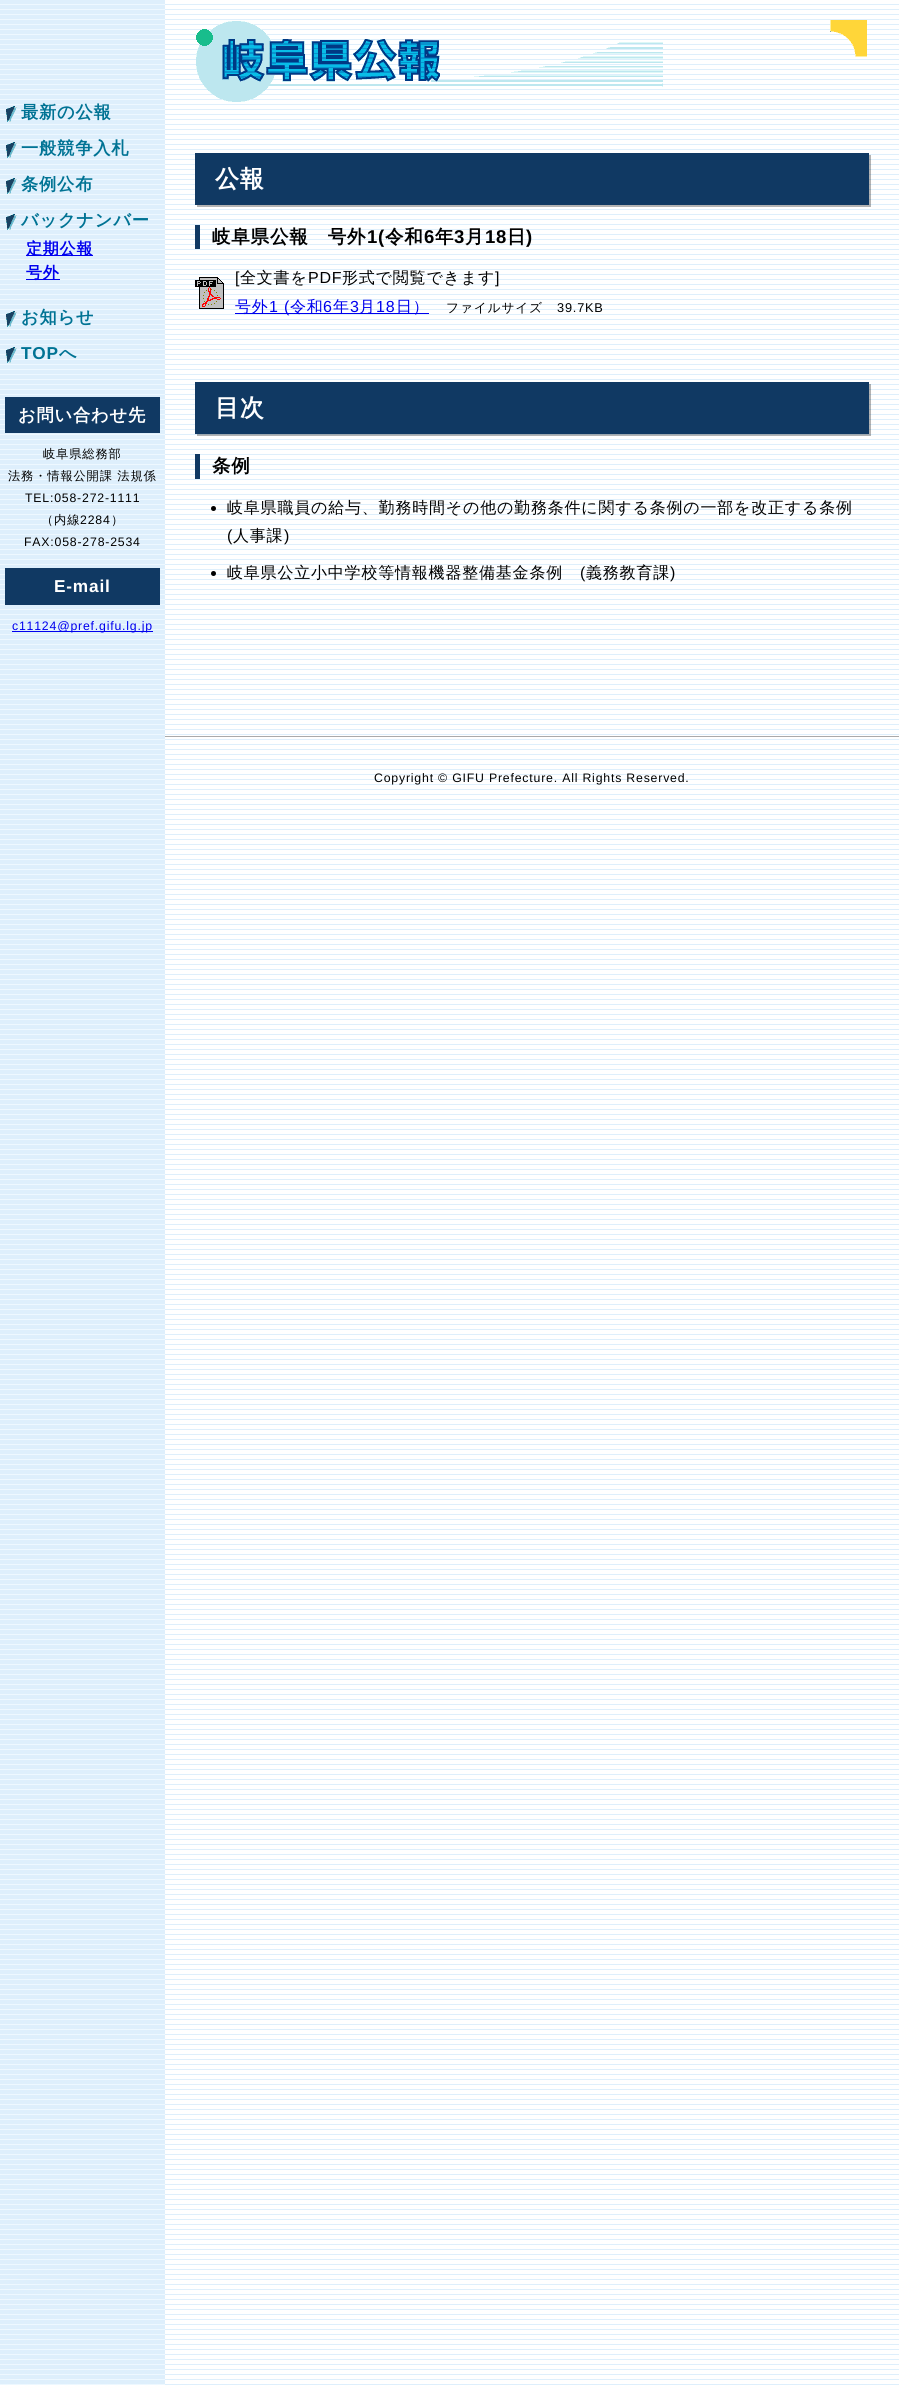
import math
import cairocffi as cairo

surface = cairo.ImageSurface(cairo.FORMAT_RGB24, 899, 2385)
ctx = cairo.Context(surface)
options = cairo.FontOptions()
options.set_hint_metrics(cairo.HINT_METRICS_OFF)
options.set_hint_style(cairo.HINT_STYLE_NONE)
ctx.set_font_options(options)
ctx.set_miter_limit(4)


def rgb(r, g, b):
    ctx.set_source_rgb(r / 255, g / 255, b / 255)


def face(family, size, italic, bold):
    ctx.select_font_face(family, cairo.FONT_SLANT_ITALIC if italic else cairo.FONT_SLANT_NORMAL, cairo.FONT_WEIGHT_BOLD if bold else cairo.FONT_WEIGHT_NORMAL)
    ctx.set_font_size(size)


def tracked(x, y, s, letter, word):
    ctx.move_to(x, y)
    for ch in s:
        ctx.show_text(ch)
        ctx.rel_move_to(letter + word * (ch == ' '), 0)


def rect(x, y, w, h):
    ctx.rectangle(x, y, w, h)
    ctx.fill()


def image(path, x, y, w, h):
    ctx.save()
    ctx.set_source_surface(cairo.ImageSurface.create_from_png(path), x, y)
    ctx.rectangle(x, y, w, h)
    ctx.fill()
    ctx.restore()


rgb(255, 255, 255)
ctx.paint()
image('image0.png', 165, 4, 734, 2381)
image('image1.png', 0, 0, 165, 2385)
image('image2.png', 6, 106, 11, 16)
face('WenQuanYi Zen Hei', 17.25, 0, 1)
rgb(0, 115, 148)
tracked(21, 118, '最新の公報', 0.8, 0)
image('image3.png', 6, 142, 11, 16)
tracked(21, 154, '一般競争入札', 0.8, 0)
image('image4.png', 6, 178, 11, 16)
tracked(21, 190, '条例公布', 0.8, 0)
image('image5.png', 6, 214, 11, 16)
tracked(21, 226, 'バックナンバー', 0.8, 0)
rgb(0, 0, 238)
rect(26, 255, 67, 1)
face('WenQuanYi Zen Hei', 16, 0, 1)
tracked(26, 254, '定期公報', 0.8, 0)
rect(26, 279, 34, 1)
tracked(26, 278, '号外', 0.8, 0)
image('image2.png', 6, 311, 11, 16)
face('WenQuanYi Zen Hei', 17.25, 0, 1)
rgb(0, 115, 148)
tracked(21, 323, 'お知らせ', 0.8, 0)
image('image3.png', 6, 347, 11, 16)
face('Liberation Sans', 17.25, 0, 1)
tracked(21, 359, 'TOP', 0.8, 0)
face('WenQuanYi Zen Hei', 17.25, 0, 1)
tracked(59, 359, 'へ', 0.8, 0)
rgb(16, 57, 99)
rect(5, 397, 155, 36)
rgb(255, 255, 255)
tracked(18, 421, 'お問い合わせ先', 0.8, 0)
face('WenQuanYi Zen Hei Medium', 12.3, 0, 0)
rgb(0, 0, 0)
tracked(43, 458, '岐阜県総務部', 0.8, 0)
tracked(8, 480, '法務・情報公開課 法規係', 0.8, 0)
face('Liberation Sans', 12.3, 0, 0)
tracked(25, 502, 'TEL:058-272-1111', 0.8, 0)
face('WenQuanYi Zen Hei Medium', 12.3, 0, 0)
tracked(41, 524, '（内線', 0.8, 0)
face('Liberation Sans', 12.3, 0, 0)
tracked(80, 524, '2284', 0.8, 0)
face('WenQuanYi Zen Hei Medium', 12.3, 0, 0)
tracked(111, 524, '）', 0.8, 0)
face('Liberation Sans', 12.3, 0, 0)
tracked(24, 546, 'FAX:058-278-2534', 0.8, 0)
rgb(16, 57, 99)
rect(5, 568, 155, 37)
face('Liberation Sans', 17.25, 0, 1)
rgb(255, 255, 255)
tracked(54, 592, 'E-mail', 0.8, 0)
rgb(0, 0, 238)
rect(12, 631, 141, 1)
face('Liberation Sans', 12.3, 0, 0)
tracked(12, 630, 'c11124@pref.gifu.lg.jp', 0.8, 0)
image('image6.png', 196, 21, 467, 81)
image('image7.png', 830, 20, 37, 37)
ctx.set_source_rgba(0, 0, 0, 0.3)
ctx.new_path()
ctx.move_to(197, 205)
ctx.line_to(197, 207)
ctx.line_to(871, 207)
ctx.line_to(871, 155)
ctx.line_to(869, 155)
ctx.line_to(869, 205)
ctx.close_path()
ctx.fill()
rgb(16, 57, 99)
rect(195, 153, 674, 52)
face('WenQuanYi Zen Hei', 24, 0, 1)
rgb(255, 255, 255)
tracked(215, 187, '公報', 0.8, 0)
rgb(16, 57, 99)
rect(195, 225, 5, 24)
face('WenQuanYi Zen Hei', 18.5, 0, 1)
rgb(0, 0, 0)
tracked(212, 243, '岐阜県公報　号外', 0.8, 0)
face('Liberation Sans', 18.5, 0, 1)
tracked(367, 243, '1(', 0.8, 0)
face('WenQuanYi Zen Hei', 18.5, 0, 1)
tracked(385, 243, '令和', 0.8, 0)
face('Liberation Sans', 18.5, 0, 1)
tracked(424, 243, '6', 0.8, 0)
face('WenQuanYi Zen Hei', 18.5, 0, 1)
tracked(435, 243, '年', 0.8, 0)
face('Liberation Sans', 18.5, 0, 1)
tracked(454, 243, '3', 0.8, 0)
face('WenQuanYi Zen Hei', 18.5, 0, 1)
tracked(465, 243, '月', 0.8, 0)
face('Liberation Sans', 18.5, 0, 1)
tracked(485, 243, '18', 0.8, 0)
face('WenQuanYi Zen Hei', 18.5, 0, 1)
tracked(507, 243, '日', 0.8, 0)
face('Liberation Sans', 18.5, 0, 1)
tracked(526, 243, ')', 0.8, 0)
image('image8.png', 195, 277, 29, 32)
face('Liberation Sans', 16, 0, 0)
tracked(235, 283, '[', 0.8, 0)
face('WenQuanYi Zen Hei Medium', 16, 0, 0)
tracked(240, 283, '全文書を', 0.8, 0)
face('Liberation Sans', 16, 0, 0)
tracked(308, 283, 'PDF', 0.8, 0)
face('WenQuanYi Zen Hei Medium', 16, 0, 0)
tracked(342, 283, '形式で閲覧できます', 0.8, 0)
face('Liberation Sans', 16, 0, 0)
tracked(495, 283, ']', 0.8, 0)
rgb(0, 0, 238)
rect(235, 313, 194, 1)
face('WenQuanYi Zen Hei Medium', 16, 0, 0)
tracked(235, 312, '号外', 0.8, 0)
face('Liberation Sans', 16, 0, 0)
tracked(269, 312, '1 (', 0.8, 0)
face('WenQuanYi Zen Hei Medium', 16, 0, 0)
tracked(290, 312, '令和', 0.8, 0)
face('Liberation Sans', 16, 0, 0)
tracked(323, 312, '6', 0.8, 0)
face('WenQuanYi Zen Hei Medium', 16, 0, 0)
tracked(333, 312, '年', 0.8, 0)
face('Liberation Sans', 16, 0, 0)
tracked(350, 312, '3', 0.8, 0)
face('WenQuanYi Zen Hei Medium', 16, 0, 0)
tracked(359, 312, '月', 0.8, 0)
face('Liberation Sans', 16, 0, 0)
tracked(376, 312, '18', 0.8, 0)
face('WenQuanYi Zen Hei Medium', 16, 0, 0)
tracked(396, 312, '日）', 0.8, 0)
face('WenQuanYi Zen Hei Medium', 12.75, 0, 0)
rgb(0, 0, 0)
tracked(446, 312, 'ファイルサイズ', 0.8, 0)
face('Liberation Sans', 12.75, 0, 0)
tracked(557, 312, '39.7KB', 0.8, 0)
ctx.set_source_rgba(0, 0, 0, 0.3)
ctx.new_path()
ctx.move_to(197, 434)
ctx.line_to(197, 436)
ctx.line_to(871, 436)
ctx.line_to(871, 384)
ctx.line_to(869, 384)
ctx.line_to(869, 434)
ctx.close_path()
ctx.fill()
rgb(16, 57, 99)
rect(195, 382, 674, 52)
face('WenQuanYi Zen Hei', 24, 0, 1)
rgb(255, 255, 255)
tracked(215, 416, '目次', 0.8, 0)
rgb(16, 57, 99)
rect(195, 454, 5, 25)
face('WenQuanYi Zen Hei', 18.5, 0, 1)
rgb(0, 0, 0)
tracked(212, 472, '条例', 0.8, 0)
ctx.new_path()
ctx.arc(213.5, 508.5, 2.5, 0, 2 * math.pi)
ctx.fill()
face('WenQuanYi Zen Hei Medium', 16, 0, 0)
tracked(227, 513, '岐阜県職員の給与、勤務時間その他の勤務条件に関する条例の一部を改正する条例', 0.8, 0)
face('Liberation Sans', 16, 0, 0)
tracked(227, 541, '(', 0.8, 0)
face('WenQuanYi Zen Hei Medium', 16, 0, 0)
tracked(233, 541, '人事課', 0.8, 0)
face('Liberation Sans', 16, 0, 0)
tracked(284, 541, ')', 0.8, 0)
ctx.new_path()
ctx.arc(213.5, 573.5, 2.5, 0, 2 * math.pi)
ctx.fill()
face('WenQuanYi Zen Hei Medium', 16, 0, 0)
tracked(227, 578, '岐阜県公立小中学校等情報機器整備基金条例', 0.8, 0)
face('Liberation Sans', 16, 0, 0)
tracked(580, 578, '(', 0.8, 0)
face('WenQuanYi Zen Hei Medium', 16, 0, 0)
tracked(586, 578, '義務教育課', 0.8, 0)
face('Liberation Sans', 16, 0, 0)
tracked(670, 578, ')', 0.8, 0)
rgb(170, 170, 170)
rect(165, 736, 734, 1)
face('Liberation Sans', 12.3, 0, 0)
rgb(0, 0, 0)
tracked(374, 782, 'Copyright © GIFU Prefecture. All Rights Reserved.', 0.8, 0)
surface.write_to_png('render.png')
